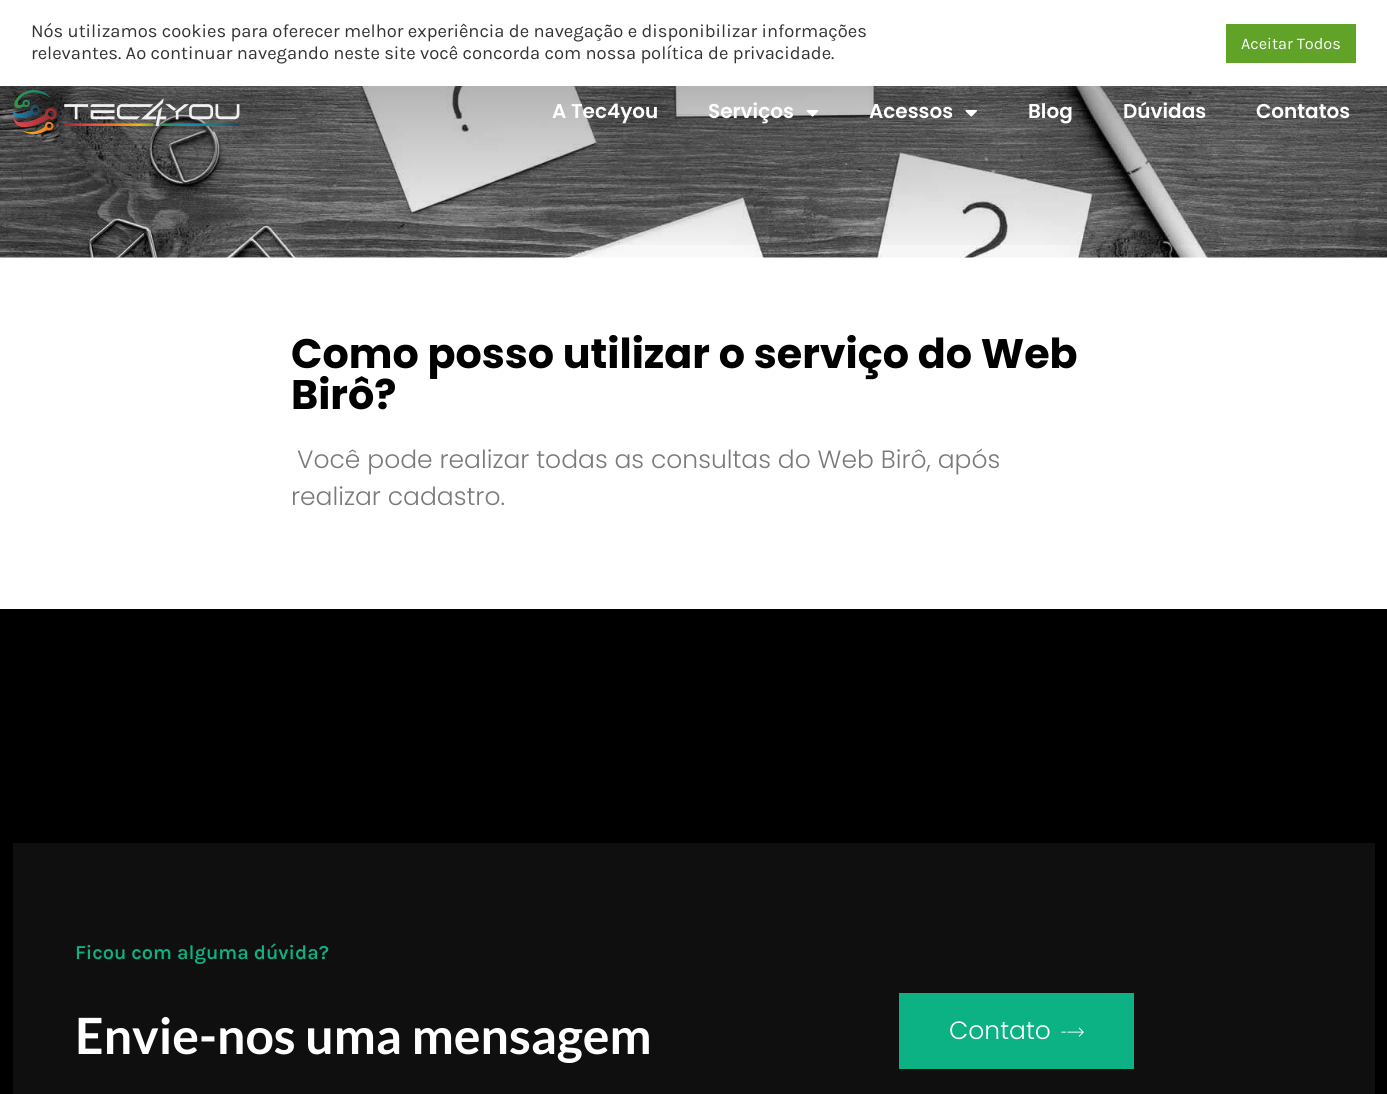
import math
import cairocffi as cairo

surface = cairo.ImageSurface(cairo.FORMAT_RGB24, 1387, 1094)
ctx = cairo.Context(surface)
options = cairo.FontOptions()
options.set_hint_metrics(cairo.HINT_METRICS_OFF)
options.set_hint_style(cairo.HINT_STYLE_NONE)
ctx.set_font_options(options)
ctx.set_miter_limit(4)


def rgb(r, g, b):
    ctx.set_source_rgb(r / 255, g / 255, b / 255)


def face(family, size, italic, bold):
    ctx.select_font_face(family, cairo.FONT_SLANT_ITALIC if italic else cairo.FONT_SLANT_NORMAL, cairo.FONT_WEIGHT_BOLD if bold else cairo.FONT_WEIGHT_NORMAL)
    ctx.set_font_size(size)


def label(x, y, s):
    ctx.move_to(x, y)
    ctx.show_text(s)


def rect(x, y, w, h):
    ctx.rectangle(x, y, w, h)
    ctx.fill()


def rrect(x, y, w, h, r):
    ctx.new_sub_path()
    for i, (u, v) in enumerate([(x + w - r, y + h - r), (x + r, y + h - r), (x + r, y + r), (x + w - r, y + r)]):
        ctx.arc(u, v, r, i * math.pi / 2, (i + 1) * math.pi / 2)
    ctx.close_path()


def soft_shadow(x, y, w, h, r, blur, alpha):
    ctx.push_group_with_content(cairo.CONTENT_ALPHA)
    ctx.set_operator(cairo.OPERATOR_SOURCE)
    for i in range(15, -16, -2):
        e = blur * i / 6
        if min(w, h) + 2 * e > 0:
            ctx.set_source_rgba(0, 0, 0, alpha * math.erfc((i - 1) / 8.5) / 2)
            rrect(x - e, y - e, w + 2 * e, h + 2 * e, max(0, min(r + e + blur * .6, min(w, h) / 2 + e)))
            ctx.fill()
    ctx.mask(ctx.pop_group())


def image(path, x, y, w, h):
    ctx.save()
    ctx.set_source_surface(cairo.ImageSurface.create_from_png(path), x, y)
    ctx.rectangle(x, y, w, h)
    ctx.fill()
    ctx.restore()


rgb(255, 255, 255)
ctx.paint()
image('image3.png', 0, 86, 1387, 172)
gradient = cairo.LinearGradient(694, -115, 694, 258)
gradient.add_color_stop_rgba(0, 0, 0, 0, 0.6)
gradient.add_color_stop_rgba(1, 0, 0, 0, 0)
ctx.set_source(gradient)
rect(0, 86, 1387, 159)
image('image0.png', 13, 90, 227, 44)
rgb(172, 171, 171)
soft_shadow(0, -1, 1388, 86, 0, 6, 0.3)
rgb(255, 255, 255)
rect(0, 0, 1387, 86)
face('Karla', 18.35, 0, 0)
rgb(51, 51, 51)
label(31, 37, 'Nós utilizamos cookies para oferecer melhor experiência de navegação e disponibilizar informações')
label(31, 59, 'relevantes. Ao continuar navegando neste site você concorda com nossa política de privacidade.')
rgb(97, 162, 41)
rect(1226, 24, 130, 39)
face('Karla', 16.25, 0, 0)
rgb(255, 255, 255)
label(1241, 49, 'Aceitar Todos')
face('Poppins SemiBold', 20, 0, 0)
label(552, 118, 'A Tec4you')
label(708, 118, 'Serviços')
image('image1.png', 806, 110, 13, 7)
label(869, 118, 'Acessos')
image('image2.png', 965, 110, 12, 7)
label(1028, 118, 'Blog')
label(1123, 118, 'Dúvidas')
label(1256, 118, 'Contatos')
face('Poppins', 41.25, 0, 1)
rgb(0, 0, 0)
label(291, 368, 'Como posso utilizar o serviço do Web')
label(291, 409, 'Birô?')
face('Poppins Light', 25, 0, 0)
rgb(122, 122, 122)
label(297, 468, 'Você pode realizar todas as consultas do Web Birô, após')
label(291, 505, 'realizar cadastro.')
rgb(0, 0, 0)
rect(0, 609, 1387, 485)
rgb(15, 15, 15)
rect(13, 843, 1362, 251)
face('Karla SemiBold', 20, 0, 0)
rgb(13, 178, 132)
label(75, 959, 'Ficou com alguma dúvida?')
face('Lato', 50, 0, 1)
rgb(255, 255, 255)
label(75, 1054, 'Envie-nos uma mensagem')
rgb(13, 178, 132)
rect(899, 993, 235, 76)
face('Poppins Light', 25, 0, 0)
rgb(255, 255, 255)
label(949, 1039, 'Contato')
image('image4.png', 1061, 1027, 23, 10)
surface.write_to_png('render.png')
